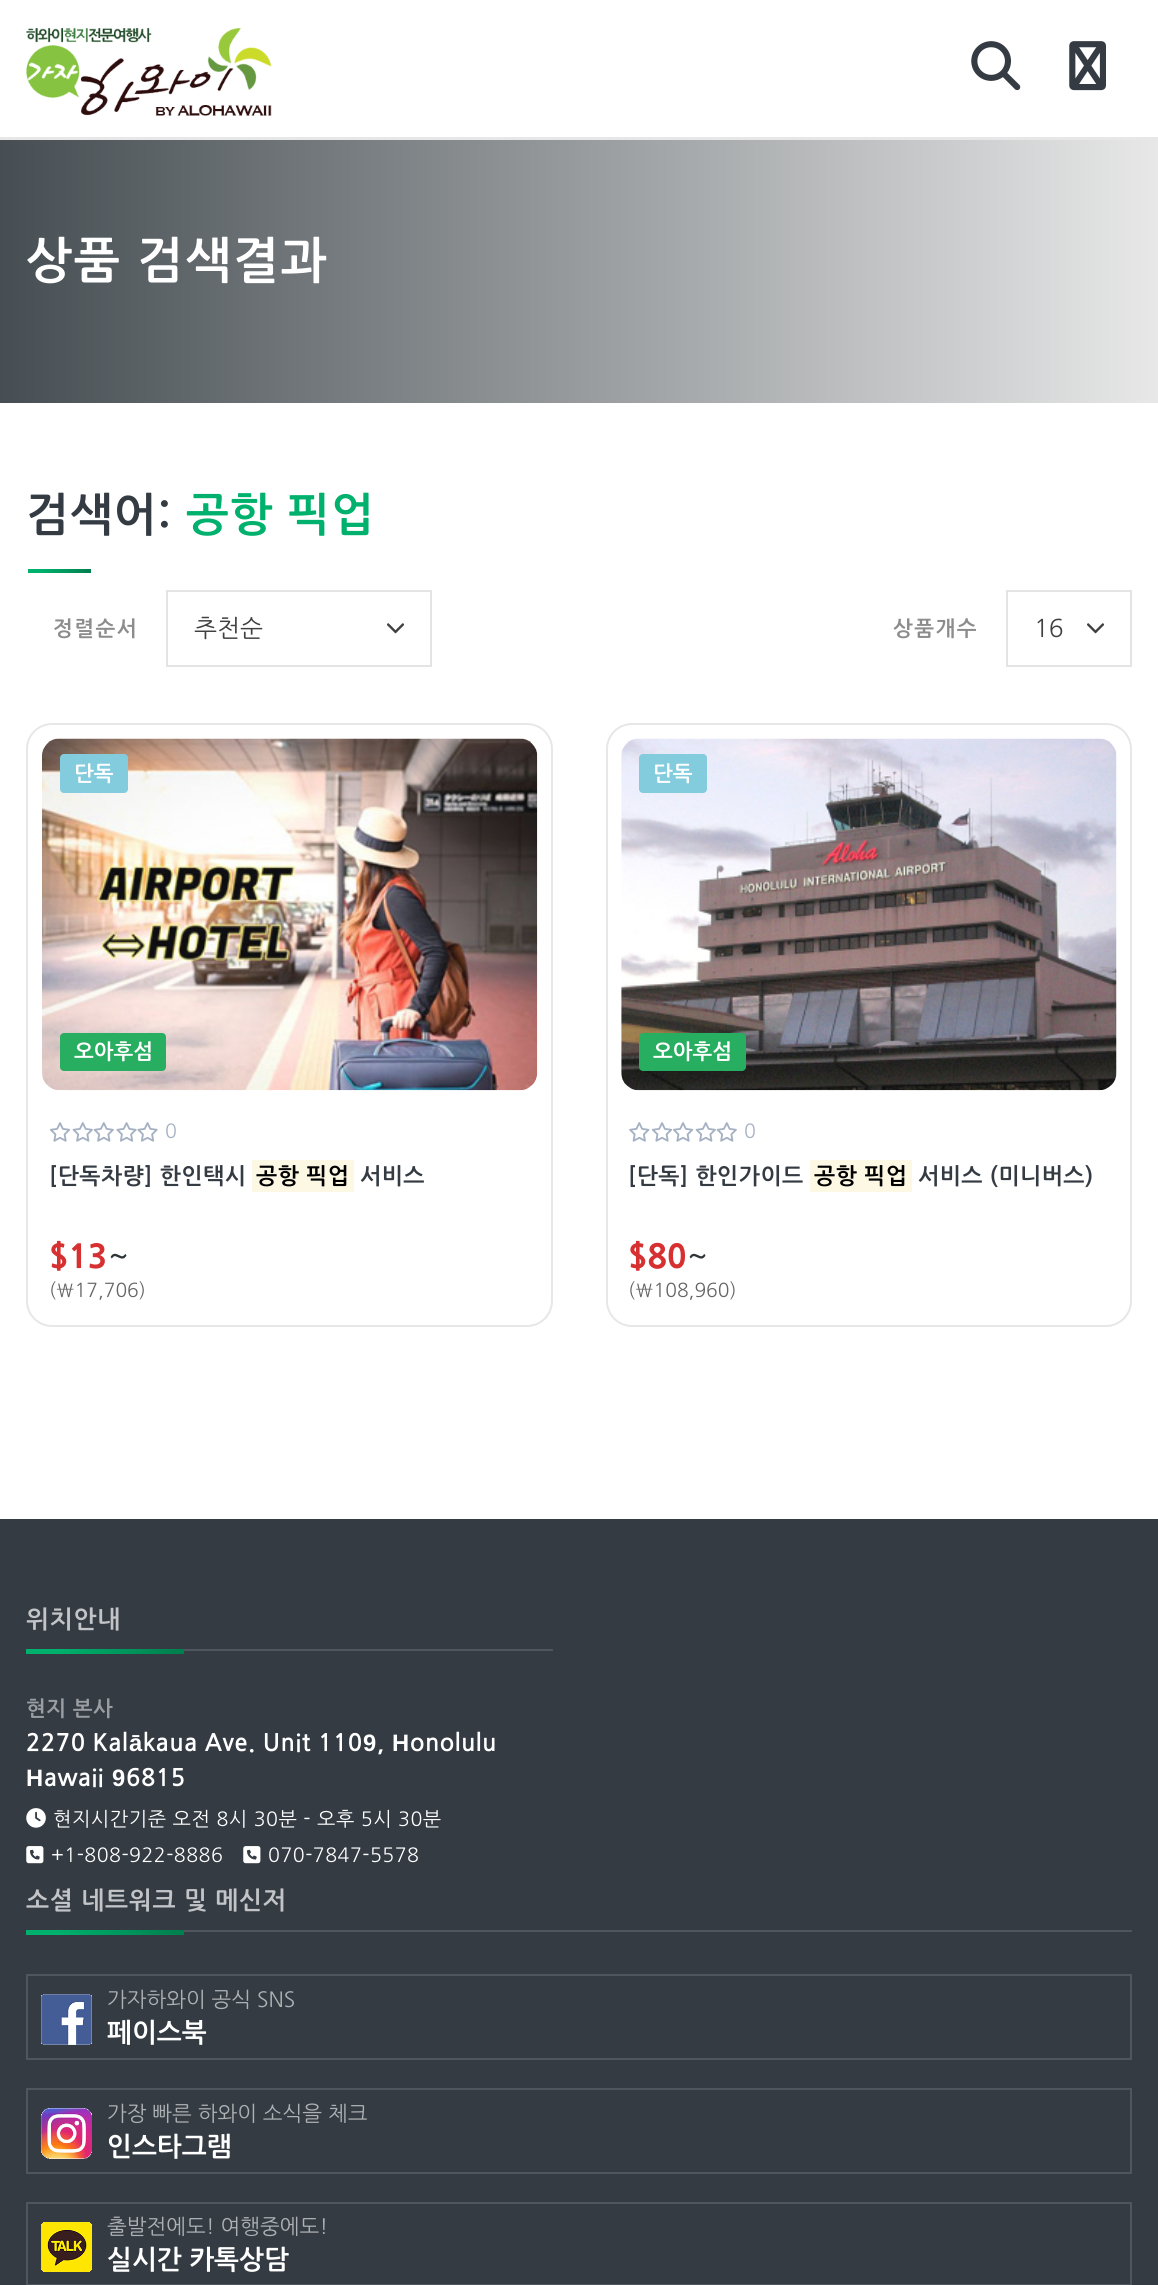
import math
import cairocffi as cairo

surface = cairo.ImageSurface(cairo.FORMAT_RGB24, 1158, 2285)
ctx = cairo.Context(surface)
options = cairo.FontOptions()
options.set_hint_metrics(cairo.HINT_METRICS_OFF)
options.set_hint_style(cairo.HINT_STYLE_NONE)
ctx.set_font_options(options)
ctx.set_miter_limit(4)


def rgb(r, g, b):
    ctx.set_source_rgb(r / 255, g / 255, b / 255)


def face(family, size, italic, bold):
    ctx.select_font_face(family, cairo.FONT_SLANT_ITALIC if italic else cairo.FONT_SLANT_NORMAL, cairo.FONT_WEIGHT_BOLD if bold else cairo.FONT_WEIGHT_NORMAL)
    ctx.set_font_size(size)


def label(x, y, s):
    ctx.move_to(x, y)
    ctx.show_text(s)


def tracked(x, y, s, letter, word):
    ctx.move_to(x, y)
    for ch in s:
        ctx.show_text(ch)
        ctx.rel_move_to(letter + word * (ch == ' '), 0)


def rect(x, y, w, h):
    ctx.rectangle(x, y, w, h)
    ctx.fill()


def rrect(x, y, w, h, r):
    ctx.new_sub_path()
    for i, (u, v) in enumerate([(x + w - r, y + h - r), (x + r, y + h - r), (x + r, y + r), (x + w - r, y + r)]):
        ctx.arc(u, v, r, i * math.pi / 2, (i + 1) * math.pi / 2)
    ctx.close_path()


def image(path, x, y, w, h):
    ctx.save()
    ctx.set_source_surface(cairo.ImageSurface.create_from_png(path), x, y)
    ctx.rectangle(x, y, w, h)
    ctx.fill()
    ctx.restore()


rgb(255, 255, 255)
ctx.paint()
image('image0.png', 26, 28, 246, 88)
image('image1.png', 971, 41, 50, 50)
image('image2.png', 1069, 41, 37, 50)
rgb(231, 231, 231)
rect(0, 137, 1158, 3)
gradient = cairo.LinearGradient(0, 271, 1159, 271)
gradient.add_color_stop_rgba(0, 0.275, 0.306, 0.325, 1)
gradient.add_color_stop_rgba(1, 0.91, 0.91, 0.91, 1)
ctx.set_source(gradient)
rect(0, 140, 1158, 263)
face('NanumGothic', 49, 0, 1)
rgb(255, 255, 255)
tracked(26, 278, '상품 검색결과', 1.75, 0)
face('NanumGothic', 45.5, 0, 1)
rgb(52, 59, 67)
tracked(26, 531, '검색어:', 1, 0)
rgb(0, 177, 109)
tracked(186, 531, '공항 픽업', 1, 0)
gradient = cairo.LinearGradient(28, 571, 91, 571)
gradient.add_color_stop_rgba(0, 0, 0.694, 0.427, 1)
gradient.add_color_stop_rgba(0.2, 0, 0.694, 0.427, 1)
gradient.add_color_stop_rgba(1, 0, 0.494, 0.306, 1)
ctx.set_source(gradient)
rect(28, 569, 63, 4)
face('NanumGothic', 21, 0, 1)
rgb(140, 140, 140)
tracked(53, 636, '정렬순서', 1.5, 0)
image('image3.png', 387, 623, 17, 11)
ctx.rectangle(167, 591, 264, 75)
rgb(228, 228, 228)
ctx.stroke()
face('NanumGothic', 24.5, 0, 0)
rgb(64, 64, 64)
label(194, 637, '추천순')
face('NanumGothic', 21, 0, 1)
rgb(140, 140, 140)
tracked(893, 636, '상품개수', 1.5, 0)
image('image3.png', 1087, 623, 17, 11)
ctx.rectangle(1007, 591, 124, 75)
rgb(228, 228, 228)
ctx.stroke()
face('NanumGothic', 24.5, 0, 0)
rgb(64, 64, 64)
label(1034, 637, '16')
rrect(27, 724, 525, 602, 25)
rgb(231, 231, 231)
ctx.stroke()
image('image4.png', 42, 738, 496, 353)
rgb(130, 204, 221)
rrect(60, 754, 68, 39, 4)
ctx.fill()
face('NanumGothic', 21, 0, 1)
rgb(255, 255, 255)
label(74, 781, '단독')
rgb(39, 174, 96)
rrect(60, 1033, 106, 38, 4)
ctx.fill()
rgb(255, 255, 255)
label(74, 1059, '오아후섬')
image('image5.png', 50, 1122, 21, 20)
image('image6.png', 72, 1122, 21, 20)
image('image6.png', 93, 1122, 21, 20)
image('image7.png', 116, 1122, 21, 20)
image('image7.png', 137, 1122, 21, 20)
face('NanumGothic', 19.6, 0, 0)
rgb(165, 177, 194)
label(165, 1138, '0')
face('NanumGothic', 22.5, 0, 1)
rgb(52, 59, 67)
tracked(49, 1184, '[단독차량] 한인택시', 0.5, 0)
rgb(252, 248, 227)
rect(252, 1160, 102, 32)
rgb(0, 0, 0)
tracked(256, 1184, '공항 픽업', 0.5, 0)
rgb(52, 59, 67)
tracked(360, 1184, '서비스', 0.5, 0)
face('NanumGothic ExtraBold', 32, 0, 0)
rgb(214, 48, 49)
label(49, 1268, '$13')
face('NanumGothic', 32, 0, 0)
rgb(45, 52, 54)
label(108, 1268, '~')
face('NanumGothic', 19.25, 0, 0)
rgb(101, 101, 101)
label(49, 1297, '(₩17,706)')
rrect(607, 724, 524, 602, 25)
rgb(231, 231, 231)
ctx.stroke()
image('image8.png', 621, 738, 496, 353)
rgb(130, 204, 221)
rrect(639, 754, 68, 39, 4)
ctx.fill()
face('NanumGothic', 21, 0, 1)
rgb(255, 255, 255)
label(653, 781, '단독')
rgb(39, 174, 96)
rrect(639, 1033, 107, 38, 4)
ctx.fill()
rgb(255, 255, 255)
label(653, 1059, '오아후섬')
image('image9.png', 629, 1122, 21, 20)
image('image5.png', 652, 1122, 21, 20)
image('image5.png', 673, 1122, 21, 20)
image('image6.png', 695, 1122, 21, 20)
image('image6.png', 716, 1122, 21, 20)
face('NanumGothic', 19.6, 0, 0)
rgb(165, 177, 194)
label(744, 1138, '0')
face('NanumGothic', 22.5, 0, 1)
rgb(52, 59, 67)
tracked(628, 1184, '[단독] 한인가이드', 0.5, 0)
rgb(252, 248, 227)
rect(810, 1160, 102, 32)
rgb(0, 0, 0)
tracked(814, 1184, '공항 픽업', 0.5, 0)
rgb(52, 59, 67)
tracked(918, 1184, '서비스 (미니버스)', 0.5, 0)
face('NanumGothic ExtraBold', 32, 0, 0)
rgb(214, 48, 49)
label(628, 1268, '$80')
face('NanumGothic', 32, 0, 0)
rgb(45, 52, 54)
label(687, 1268, '~')
face('NanumGothic', 19.25, 0, 0)
rgb(101, 101, 101)
label(628, 1297, '(₩108,960)')
rgb(52, 59, 67)
rect(0, 1519, 1158, 766)
rgb(80, 86, 93)
rect(184, 1649, 369, 2)
face('NanumGothic', 24.5, 0, 1)
rgb(194, 196, 199)
tracked(26, 1628, '위치안내', 0.75, 0)
gradient = cairo.LinearGradient(26, 1651, 184, 1651)
gradient.add_color_stop_rgba(0, 0, 0.694, 0.427, 1)
gradient.add_color_stop_rgba(0.2, 0, 0.694, 0.427, 1)
gradient.add_color_stop_rgba(1, 0, 0.494, 0.306, 1)
ctx.set_source(gradient)
rect(26, 1649, 158, 5)
face('NanumGothic', 21, 0, 1)
rgb(154, 157, 161)
tracked(26, 1716, '현지 본사', 0.5, 0)
face('NanumGothic', 23.75, 0, 1)
rgb(255, 255, 255)
tracked(26, 1751, '2270 Kal', 0.5, 0)
face('Liberation Sans', 23.75, 0, 1)
tracked(129, 1751, 'ā', 0.5, 0)
face('NanumGothic', 23.75, 0, 1)
tracked(143, 1751, 'kaua Ave. Unit 110', 0.5, 0)
face('Liberation Sans', 23.75, 0, 1)
tracked(363, 1751, '9', 0.5, 0)
face('NanumGothic', 23.75, 0, 1)
tracked(377, 1751, ',', 0.5, 0)
face('Liberation Sans', 23.75, 0, 1)
tracked(392, 1751, 'H', 0.5, 0)
face('NanumGothic', 23.75, 0, 1)
tracked(410, 1751, 'onolulu', 0.5, 0)
face('Liberation Sans', 23.75, 0, 1)
tracked(26, 1786, 'H', 0.5, 0)
face('NanumGothic', 23.75, 0, 1)
tracked(44, 1786, 'awaii', 0.5, 0)
face('Liberation Sans', 23.75, 0, 1)
tracked(112, 1786, '9', 0.5, 0)
face('NanumGothic', 23.75, 0, 1)
tracked(126, 1786, '6815', 0.5, 0)
image('image10.png', 26, 1808, 20, 20)
face('NanumGothic', 19.6, 0, 0)
tracked(53, 1826, '현지시간기준 오전 8시 30분 - 오후 5시 30분', 0.5, 0)
image('image11.png', 26, 1846, 18, 18)
tracked(51, 1862, '+1-808-922-8886', 0.5, 0)
image('image11.png', 243, 1846, 18, 18)
tracked(268, 1862, '070-7847-5578', 0.5, 0)
rgb(80, 86, 93)
rect(184, 1930, 948, 2)
face('NanumGothic', 24.5, 0, 1)
rgb(194, 196, 199)
tracked(26, 1909, '소셜 네트워크 및 메신저', 0.75, 0)
gradient = cairo.LinearGradient(26, 1933, 184, 1933)
gradient.add_color_stop_rgba(0, 0, 0.694, 0.427, 1)
gradient.add_color_stop_rgba(0.2, 0, 0.694, 0.427, 1)
gradient.add_color_stop_rgba(1, 0, 0.494, 0.306, 1)
ctx.set_source(gradient)
rect(26, 1930, 158, 5)
ctx.rectangle(27, 1975, 1104, 84)
rgb(80, 86, 93)
ctx.stroke()
image('image12.png', 41, 1994, 51, 51)
face('NanumGothic', 21, 0, 0)
rgb(174, 177, 180)
label(107, 2007, '가자하와이 공식 SNS')
face('NanumGothic', 26.5, 0, 1)
rgb(255, 255, 255)
label(107, 2042, '페이스북')
ctx.rectangle(27, 2089, 1104, 84)
rgb(80, 86, 93)
ctx.stroke()
image('image13.png', 41, 2108, 51, 51)
face('NanumGothic', 21, 0, 0)
rgb(174, 177, 180)
label(107, 2121, '가장 빠른 하와이 소식을 체크')
face('NanumGothic', 26.5, 0, 1)
rgb(255, 255, 255)
label(107, 2156, '인스타그램')
ctx.rectangle(27, 2203, 1104, 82)
rgb(80, 86, 93)
ctx.stroke()
image('image14.png', 41, 2222, 51, 50)
face('NanumGothic', 21, 0, 0)
rgb(174, 177, 180)
label(107, 2234, '출발전에도! 여행중에도!')
face('NanumGothic', 26.5, 0, 1)
rgb(255, 255, 255)
label(107, 2269, '실시간 카톡상담')
surface.write_to_png('render.png')
